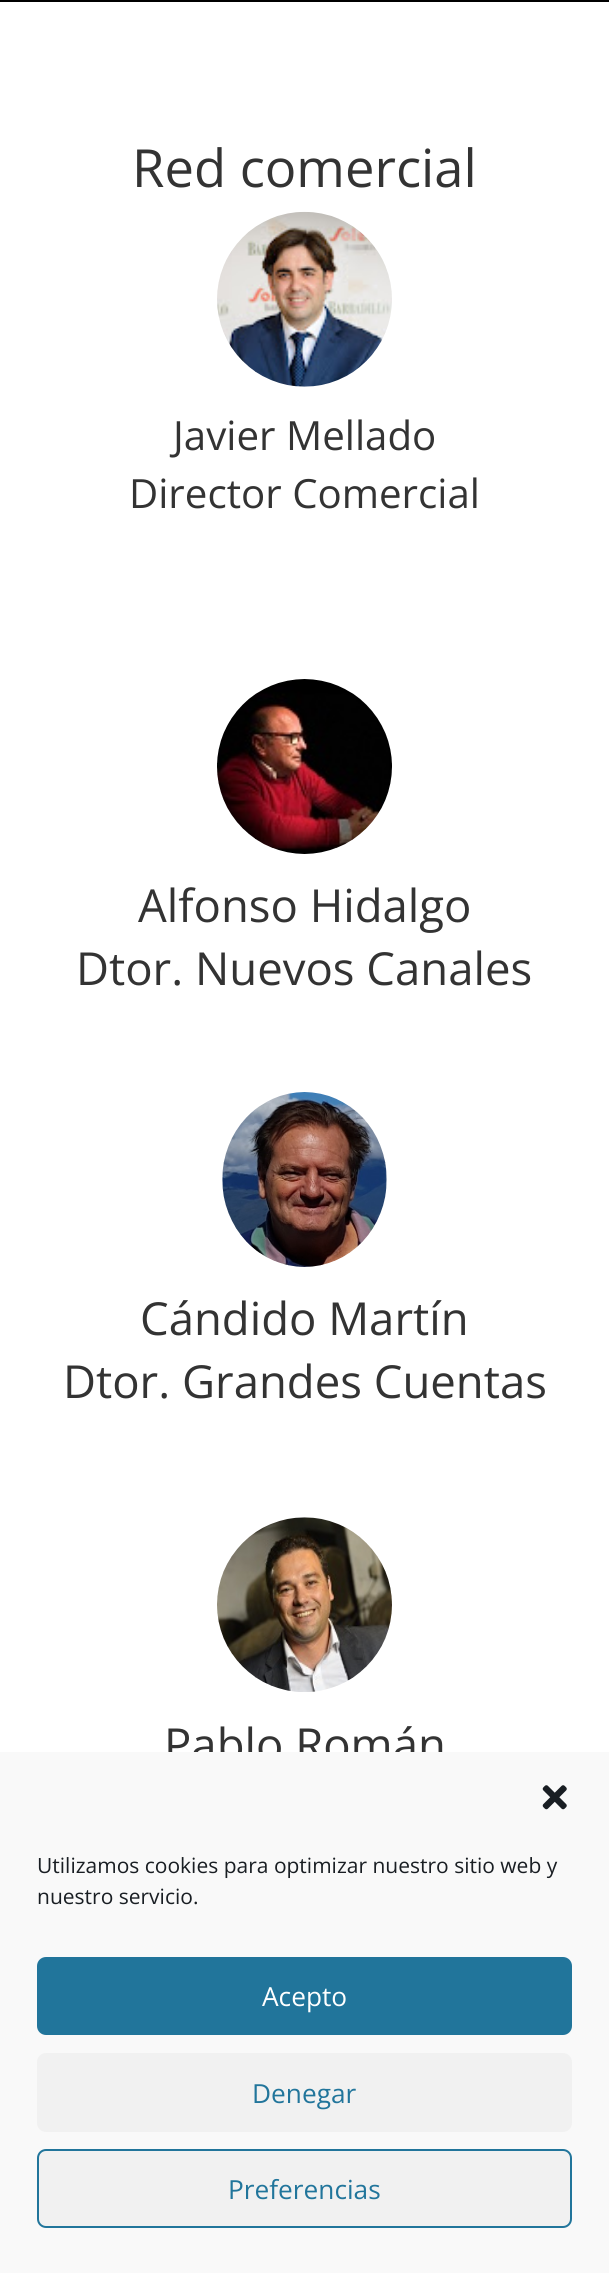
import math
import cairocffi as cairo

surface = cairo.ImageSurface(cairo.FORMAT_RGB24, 609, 2273)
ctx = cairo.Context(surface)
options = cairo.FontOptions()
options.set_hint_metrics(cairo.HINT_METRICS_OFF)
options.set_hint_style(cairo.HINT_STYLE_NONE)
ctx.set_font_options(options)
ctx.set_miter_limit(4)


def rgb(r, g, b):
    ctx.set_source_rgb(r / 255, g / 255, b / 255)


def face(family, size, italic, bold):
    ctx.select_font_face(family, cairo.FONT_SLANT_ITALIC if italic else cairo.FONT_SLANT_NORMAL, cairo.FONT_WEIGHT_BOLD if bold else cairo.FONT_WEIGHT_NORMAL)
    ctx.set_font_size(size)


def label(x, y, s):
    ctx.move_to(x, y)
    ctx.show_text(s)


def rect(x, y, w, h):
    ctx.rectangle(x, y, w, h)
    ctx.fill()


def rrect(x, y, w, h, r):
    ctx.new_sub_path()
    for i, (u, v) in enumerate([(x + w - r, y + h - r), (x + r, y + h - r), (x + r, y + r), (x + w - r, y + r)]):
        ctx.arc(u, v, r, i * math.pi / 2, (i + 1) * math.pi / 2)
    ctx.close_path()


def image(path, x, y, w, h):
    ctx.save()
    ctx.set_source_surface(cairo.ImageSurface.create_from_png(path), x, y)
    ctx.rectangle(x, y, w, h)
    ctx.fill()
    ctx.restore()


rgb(255, 255, 255)
ctx.paint()
rgb(0, 0, 0)
rect(0, 0, 609, 2)
face('Open Sans', 52.5, 0, 0)
rgb(51, 51, 51)
label(132, 187, 'Red comercial')
image('image0.png', 217, 211, 175, 176)
face('Open Sans', 40.25, 0, 0)
label(173, 450, 'Javier Mellado')
label(129, 508, 'Director Comercial')
image('image1.png', 217, 679, 175, 175)
face('Open Sans', 45.5, 0, 0)
label(138, 922, 'Alfonso Hidalgo')
label(76, 985, 'Dtor. Nuevos Canales')
image('image2.png', 222, 1092, 165, 175)
label(140, 1335, 'Cándido Martín')
label(63, 1398, 'Dtor. Grandes Cuentas')
image('image3.png', 217, 1517, 175, 175)
label(164, 1761, 'Pablo Román')
rgb(249, 249, 249)
rect(0, 1752, 609, 521)
image('image4.png', 542, 1785, 25, 25)
face('Open Sans', 21, 0, 0)
rgb(25, 30, 35)
label(37, 1873, 'Utilizamos cookies para optimizar nuestro sitio web y')
label(37, 1904, 'nuestro servicio.')
rgb(33, 117, 155)
rrect(38, 1958, 533, 76, 8)
ctx.fill_preserve()
ctx.stroke()
face('Open Sans', 26.25, 0, 0)
rgb(255, 255, 255)
label(262, 2006, 'Acepto')
rgb(241, 241, 241)
rrect(37, 2053, 535, 79, 9)
ctx.fill()
rgb(33, 117, 155)
label(252, 2103, 'Denegar')
rgb(241, 241, 241)
rrect(38, 2150, 533, 77, 8)
ctx.fill_preserve()
rgb(33, 117, 155)
ctx.stroke()
label(228, 2199, 'Preferencias')
surface.write_to_png('render.png')
